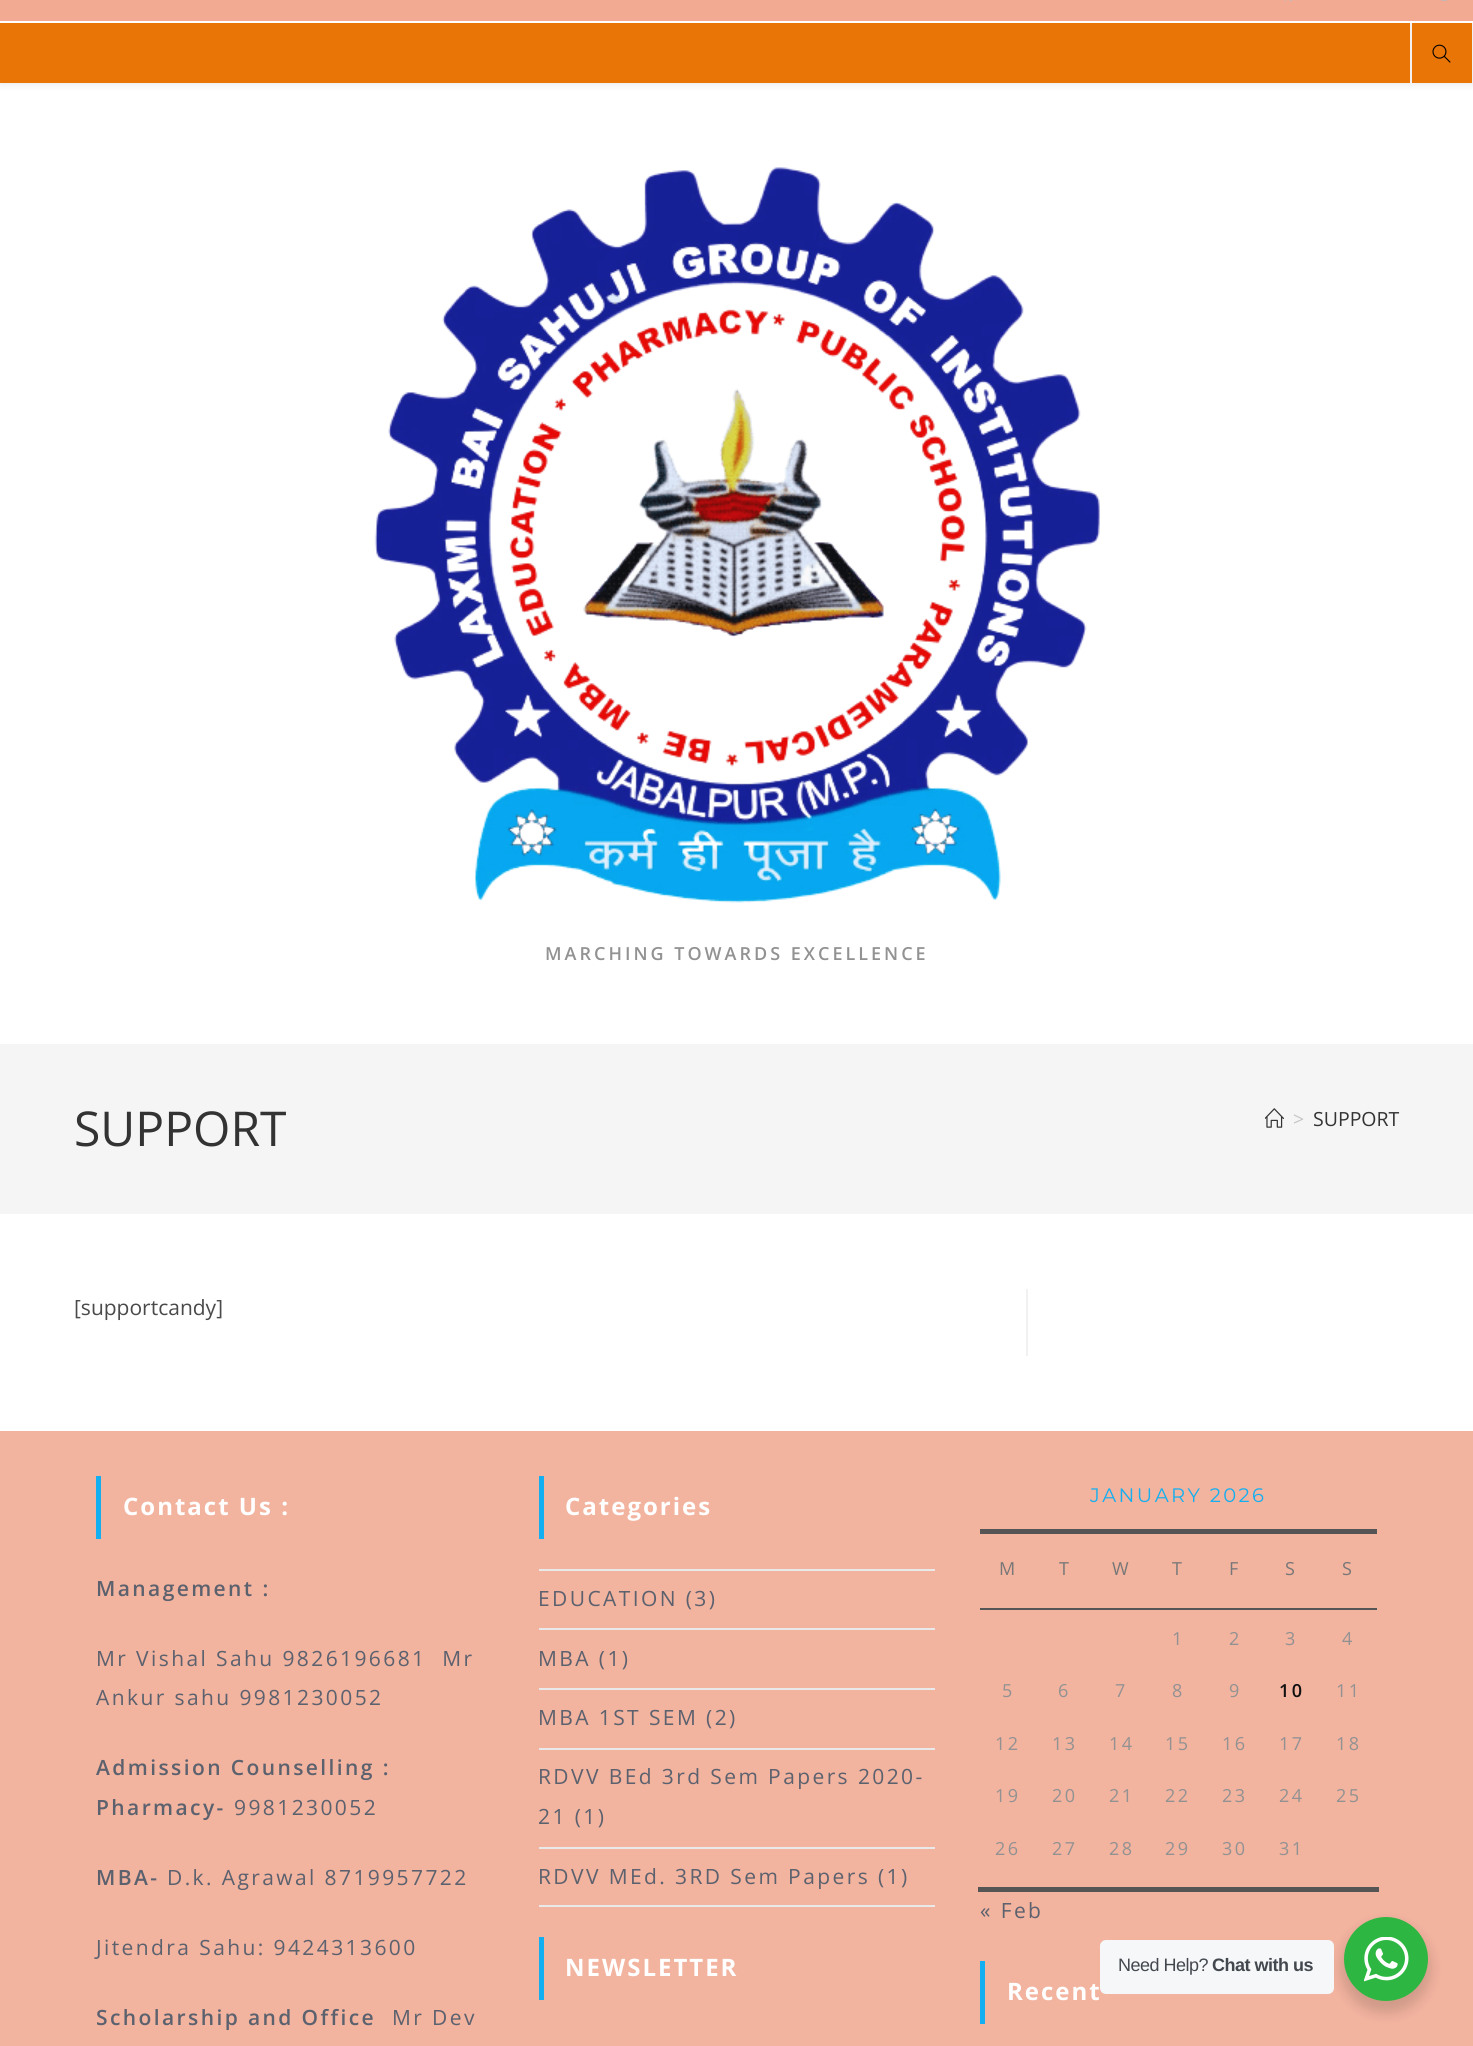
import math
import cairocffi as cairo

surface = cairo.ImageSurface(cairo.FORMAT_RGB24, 1473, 2046)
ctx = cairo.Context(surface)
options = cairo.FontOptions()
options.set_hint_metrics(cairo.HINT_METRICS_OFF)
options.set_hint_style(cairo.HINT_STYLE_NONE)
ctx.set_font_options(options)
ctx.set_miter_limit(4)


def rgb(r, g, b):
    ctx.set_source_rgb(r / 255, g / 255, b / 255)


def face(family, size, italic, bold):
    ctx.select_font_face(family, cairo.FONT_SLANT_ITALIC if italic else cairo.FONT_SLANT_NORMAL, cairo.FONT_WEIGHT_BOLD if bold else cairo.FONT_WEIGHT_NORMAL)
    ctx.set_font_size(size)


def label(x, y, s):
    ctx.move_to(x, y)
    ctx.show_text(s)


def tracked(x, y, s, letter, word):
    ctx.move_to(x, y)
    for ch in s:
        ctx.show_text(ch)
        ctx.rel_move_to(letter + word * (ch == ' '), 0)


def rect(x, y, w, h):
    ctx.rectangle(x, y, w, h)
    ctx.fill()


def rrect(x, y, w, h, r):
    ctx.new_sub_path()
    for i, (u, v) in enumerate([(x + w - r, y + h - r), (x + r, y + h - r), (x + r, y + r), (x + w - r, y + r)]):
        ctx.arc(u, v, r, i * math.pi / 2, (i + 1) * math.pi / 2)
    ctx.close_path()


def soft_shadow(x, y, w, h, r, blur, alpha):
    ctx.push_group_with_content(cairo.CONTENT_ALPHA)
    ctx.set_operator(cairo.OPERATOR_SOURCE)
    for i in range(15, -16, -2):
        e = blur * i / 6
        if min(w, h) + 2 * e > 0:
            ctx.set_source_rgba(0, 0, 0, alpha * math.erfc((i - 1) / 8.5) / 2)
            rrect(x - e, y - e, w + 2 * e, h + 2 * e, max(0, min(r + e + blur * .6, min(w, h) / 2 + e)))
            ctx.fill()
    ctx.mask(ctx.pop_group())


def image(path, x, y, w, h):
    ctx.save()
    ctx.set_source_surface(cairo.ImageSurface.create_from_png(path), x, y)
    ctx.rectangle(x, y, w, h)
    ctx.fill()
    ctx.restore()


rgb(255, 255, 255)
ctx.paint()
rgb(0, 0, 0)
soft_shadow(0, 24, 1473, 60, 0, 4, 0.1)
rgb(243, 170, 146)
rect(0, 0, 1473, 21)
rgb(255, 255, 255)
rect(0, 21, 1473, 2)
image('image0.png', 1284, 0, 9, 1)
image('image1.png', 1440, 0, 8, 1)
rgb(234, 117, 7)
rect(0, 23, 1472, 60)
rgb(241, 241, 241)
rect(1472, 23, 1, 60)
rect(1410, 23, 2, 60)
image('image2.png', 1432, 44, 19, 19)
image('image3.png', 374, 167, 726, 736)
face('Open Sans SemiBold', 18, 0, 0)
rgb(146, 146, 146)
tracked(545, 960, 'MARCHING TOWARDS EXCELLENCE', 3, 0)
rgb(245, 245, 245)
rect(0, 1044, 1473, 170)
face('Open Sans', 48, 0, 0)
rgb(51, 51, 51)
label(74, 1146, 'SUPPORT')
image('image4.png', 1265, 1108, 19, 20)
face('Open Sans', 19.5, 0, 0)
rgb(198, 198, 198)
label(1293, 1126, '>')
rgb(51, 51, 51)
label(1313, 1126, 'SUPPORT')
rgb(241, 241, 241)
rect(1026, 1289, 2, 67)
face('Open Sans', 21, 0, 0)
rgb(74, 74, 74)
label(74, 1315, '[supportcandy]')
rgb(242, 179, 159)
rect(0, 1431, 1473, 615)
rgb(19, 175, 240)
rect(96, 1476, 5, 63)
face('Open Sans', 24, 0, 1)
rgb(255, 255, 255)
tracked(123, 1515, 'Contact Us :', 2, 0)
face('Open Sans SemiBold', 21, 0, 0)
rgb(92, 97, 110)
tracked(96, 1596, 'Management :', 2.4, 0)
face('Open Sans', 21, 0, 0)
tracked(96, 1666, 'Mr Vishal Sahu 9826196681  Mr', 2.4, 0)
tracked(96, 1705, 'Ankur sahu 9981230052', 2.4, 0)
face('Open Sans SemiBold', 21, 0, 0)
tracked(96, 1775, 'Admission Counselling :', 2.4, 0)
tracked(96, 1815, 'Pharmacy-', 2.4, 0)
face('Open Sans', 21, 0, 0)
tracked(234, 1815, '9981230052', 2.4, 0)
face('Open Sans SemiBold', 21, 0, 0)
tracked(96, 1885, 'MBA-', 2.4, 0)
face('Open Sans', 21, 0, 0)
tracked(167, 1885, 'D.k. Agrawal 8719957722', 2.4, 0)
tracked(96, 1955, 'Jitendra Sahu: 9424313600', 2.4, 0)
face('Open Sans SemiBold', 21, 0, 0)
tracked(96, 2025, 'Scholarship and Office', 2.4, 0)
face('Open Sans', 21, 0, 0)
tracked(392, 2025, 'Mr Dev', 2.4, 0)
rgb(19, 175, 240)
rect(539, 1476, 5, 63)
face('Open Sans', 24, 0, 1)
rgb(255, 255, 255)
tracked(565, 1515, 'Categories', 2, 0)
rgb(233, 233, 233)
rect(539, 1569, 396, 2)
rect(539, 1628, 396, 2)
face('Open Sans', 21, 0, 0)
rgb(92, 97, 110)
tracked(538, 1606, 'EDUCATION (3)', 2.4, 0)
rgb(233, 233, 233)
rect(539, 1688, 396, 2)
rgb(92, 97, 110)
tracked(538, 1666, 'MBA (1)', 2.4, 0)
rgb(233, 233, 233)
rect(539, 1748, 396, 2)
rgb(92, 97, 110)
tracked(538, 1725, 'MBA 1ST SEM (2)', 2.4, 0)
rgb(233, 233, 233)
rect(539, 1847, 396, 2)
rgb(92, 97, 110)
tracked(538, 1784, 'RDVV BEd 3rd Sem Papers 2020-', 2.4, 0)
tracked(538, 1824, '21 (1)', 2.4, 0)
rgb(233, 233, 233)
rect(539, 1905, 396, 2)
rgb(92, 97, 110)
tracked(538, 1884, 'RDVV MEd. 3RD Sem Papers (1)', 2.4, 0)
rgb(19, 175, 240)
rect(539, 1937, 5, 63)
face('Open Sans', 24, 0, 1)
rgb(255, 255, 255)
tracked(565, 1976, 'NEWSLETTER', 2, 0)
rgb(85, 85, 85)
rect(980, 1529, 397, 5)
face('Montserrat', 19.5, 0, 0)
rgb(19, 175, 240)
tracked(1090, 1502, 'JANUARY 2026', 2.4, 0)
face('Open Sans', 18, 0, 0)
rgb(119, 119, 119)
tracked(999, 1575, 'M', 2.4, 0)
tracked(1059, 1575, 'T', 2.4, 0)
tracked(1112, 1575, 'W', 2.4, 0)
tracked(1172, 1575, 'T', 2.4, 0)
tracked(1229, 1575, 'F', 2.4, 0)
tracked(1285, 1575, 'S', 2.4, 0)
rgb(85, 85, 85)
rect(980, 1608, 397, 2)
rgb(119, 119, 119)
tracked(1342, 1575, 'S', 2.4, 0)
rgb(85, 85, 85)
rect(978, 1887, 401, 5)
rgb(146, 146, 146)
tracked(1172, 1645, '1', 2.4, 0)
tracked(1229, 1645, '2', 2.4, 0)
tracked(1285, 1645, '3', 2.4, 0)
tracked(1342, 1645, '4', 2.4, 0)
tracked(1002, 1697, '5', 2.4, 0)
tracked(1058, 1697, '6', 2.4, 0)
tracked(1115, 1697, '7', 2.4, 0)
tracked(1172, 1697, '8', 2.4, 0)
tracked(1229, 1697, '9', 2.4, 0)
face('Open Sans SemiBold', 18, 0, 0)
rgb(17, 17, 17)
tracked(1279, 1697, '10', 2.4, 0)
face('Open Sans', 18, 0, 0)
rgb(146, 146, 146)
tracked(1336, 1697, '11', 2.4, 0)
tracked(995, 1750, '12', 2.4, 0)
tracked(1052, 1750, '13', 2.4, 0)
tracked(1109, 1750, '14', 2.4, 0)
tracked(1165, 1750, '15', 2.4, 0)
tracked(1222, 1750, '16', 2.4, 0)
tracked(1279, 1750, '17', 2.4, 0)
tracked(1336, 1750, '18', 2.4, 0)
tracked(995, 1802, '19', 2.4, 0)
tracked(1052, 1802, '20', 2.4, 0)
tracked(1109, 1802, '21', 2.4, 0)
tracked(1165, 1802, '22', 2.4, 0)
tracked(1222, 1802, '23', 2.4, 0)
tracked(1279, 1802, '24', 2.4, 0)
tracked(1336, 1802, '25', 2.4, 0)
tracked(995, 1855, '26', 2.4, 0)
tracked(1052, 1855, '27', 2.4, 0)
tracked(1109, 1855, '28', 2.4, 0)
tracked(1165, 1855, '29', 2.4, 0)
tracked(1222, 1855, '30', 2.4, 0)
tracked(1279, 1855, '31', 2.4, 0)
face('Open Sans', 21, 0, 0)
rgb(92, 97, 110)
tracked(980, 1918, '« Feb', 2.4, 0)
rgb(19, 175, 240)
rect(980, 1961, 5, 63)
face('Open Sans', 24, 0, 1)
rgb(255, 255, 255)
tracked(1007, 2000, 'Recent', 2, 0)
rgb(0, 0, 0)
soft_shadow(1341, 1923, 90, 90, 45, 6, 0.14)
rgb(245, 247, 249)
rrect(1100, 1940, 234, 54, 6)
ctx.fill()
face('Liberation Sans', 18, 0, 0)
rgb(67, 71, 78)
tracked(1118, 1971, 'Need Help?', -0.5, 0)
face('Liberation Sans', 18, 0, 1)
tracked(1212, 1971, 'Chat with us', -0.5, 0)
rgb(45, 183, 66)
ctx.new_path()
ctx.arc(1386, 1959, 42, 0, 2 * math.pi)
ctx.fill()
image('image5.png', 1364, 1937, 45, 45)
surface.write_to_png('render.png')
